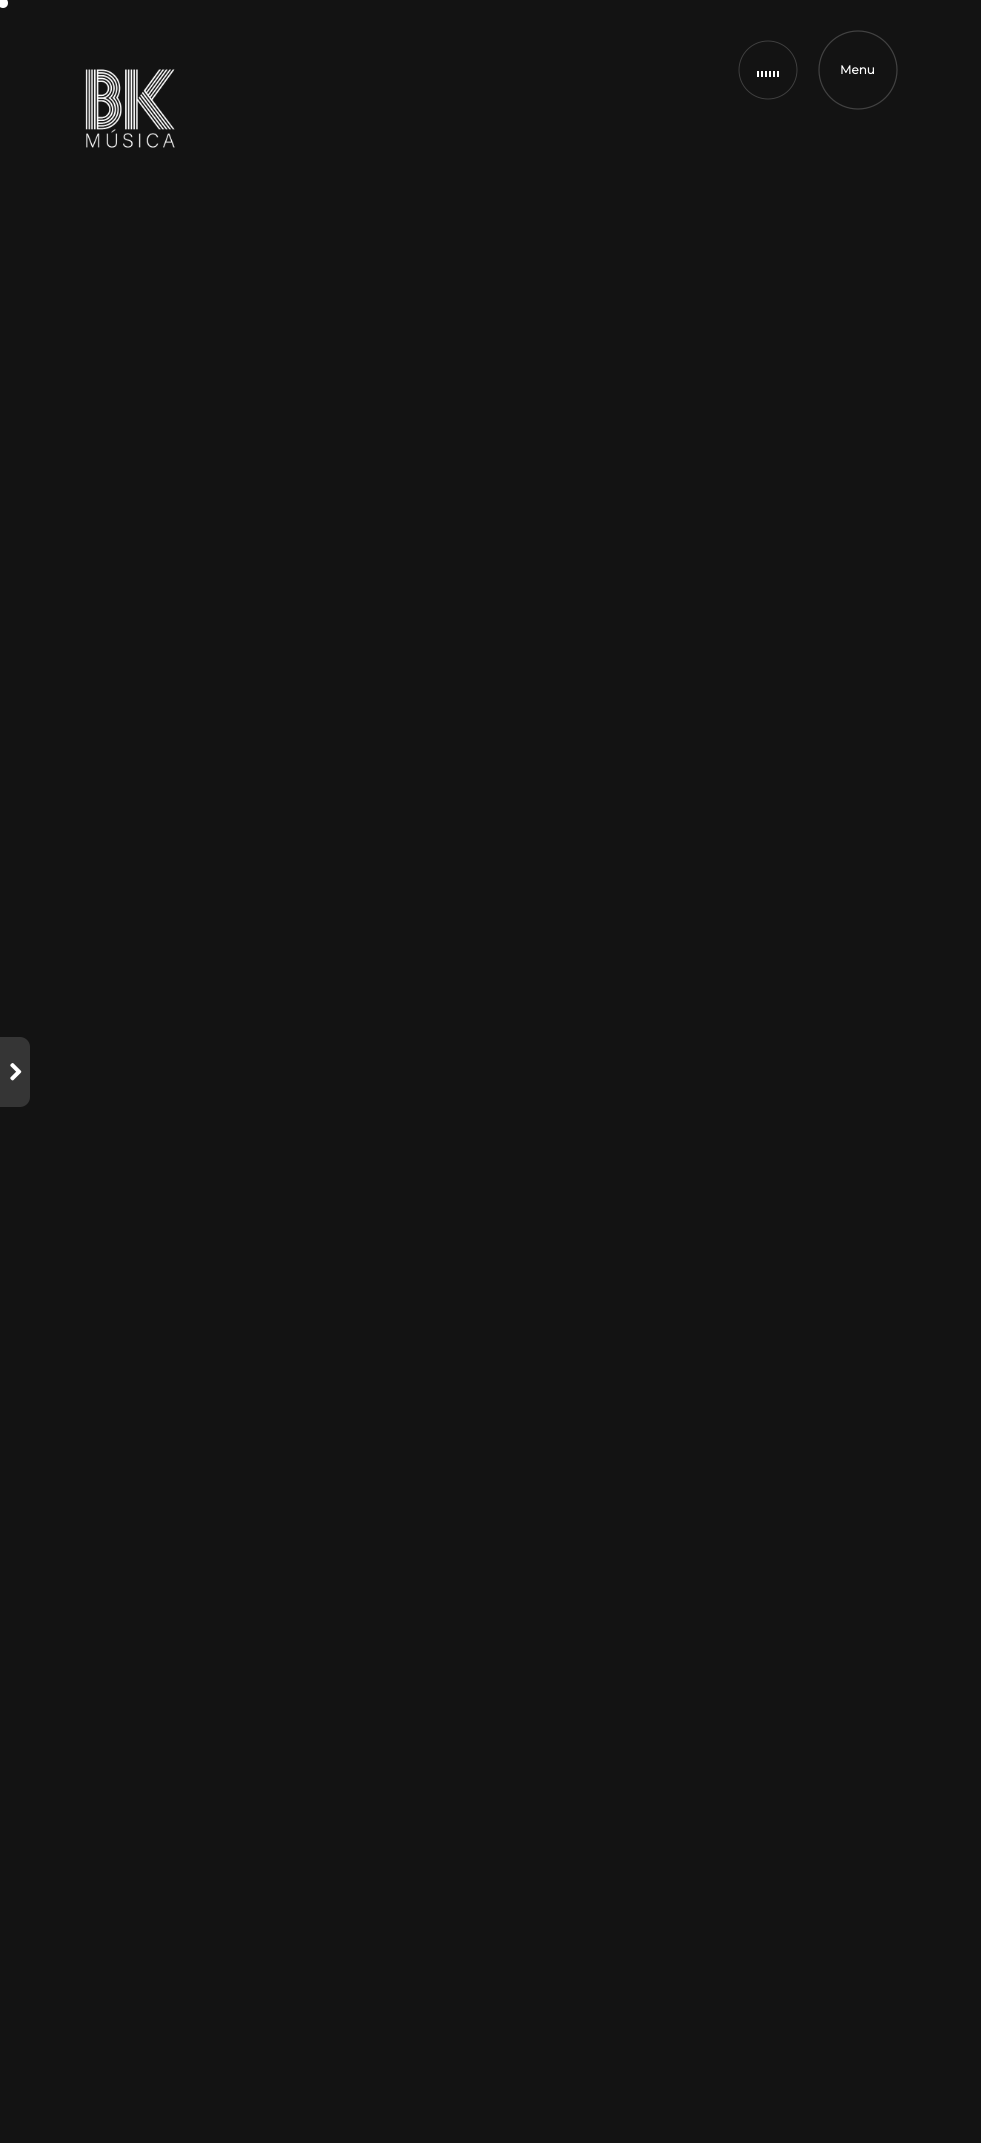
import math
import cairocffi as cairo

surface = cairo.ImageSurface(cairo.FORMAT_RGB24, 981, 2143)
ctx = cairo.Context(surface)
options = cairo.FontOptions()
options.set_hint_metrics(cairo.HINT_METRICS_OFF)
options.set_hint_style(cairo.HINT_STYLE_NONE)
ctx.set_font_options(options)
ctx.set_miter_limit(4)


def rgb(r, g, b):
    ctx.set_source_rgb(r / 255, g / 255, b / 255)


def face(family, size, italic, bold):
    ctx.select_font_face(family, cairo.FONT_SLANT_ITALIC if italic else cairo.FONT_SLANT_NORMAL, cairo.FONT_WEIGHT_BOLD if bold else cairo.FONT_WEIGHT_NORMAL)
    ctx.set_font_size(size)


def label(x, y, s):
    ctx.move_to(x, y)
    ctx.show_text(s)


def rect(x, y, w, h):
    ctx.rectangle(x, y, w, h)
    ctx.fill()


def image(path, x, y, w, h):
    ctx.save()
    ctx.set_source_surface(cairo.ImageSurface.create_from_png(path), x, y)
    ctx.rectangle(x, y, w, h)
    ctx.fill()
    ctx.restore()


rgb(19, 19, 19)
ctx.paint()
rgb(255, 255, 255)
ctx.arc(3, 3, 5, 0, 2 * math.pi)
ctx.fill()
image('image0.png', 85, 69, 90, 79)
ctx.arc(768, 70, 29, 0, 2 * math.pi)
rgb(66, 66, 66)
ctx.set_line_width(0.9)
ctx.stroke()
rgb(255, 255, 255)
rect(757, 71, 2, 6)
rect(761, 71, 2, 6)
rect(765, 71, 2, 6)
rect(769, 71, 2, 6)
rect(773, 71, 2, 6)
rect(777, 71, 2, 6)
ctx.arc(858, 70, 39, 0, 2 * math.pi)
rgb(66, 66, 66)
ctx.set_line_width(1.2)
ctx.stroke()
face('Montserrat', 12, 0, 1)
rgb(255, 255, 255)
label(840, 74, 'Menu')
rgb(53, 53, 53)
ctx.new_path()
ctx.move_to(0, 1037)
ctx.line_to(20, 1037)
ctx.curve_to(25.5, 1037, 30, 1041.5, 30, 1047)
ctx.line_to(30, 1097)
ctx.curve_to(30, 1102.5, 25.5, 1107, 20, 1107)
ctx.line_to(0, 1107)
ctx.close_path()
ctx.fill()
image('image1.png', 10, 1063, 12, 18)
surface.write_to_png('render.png')
